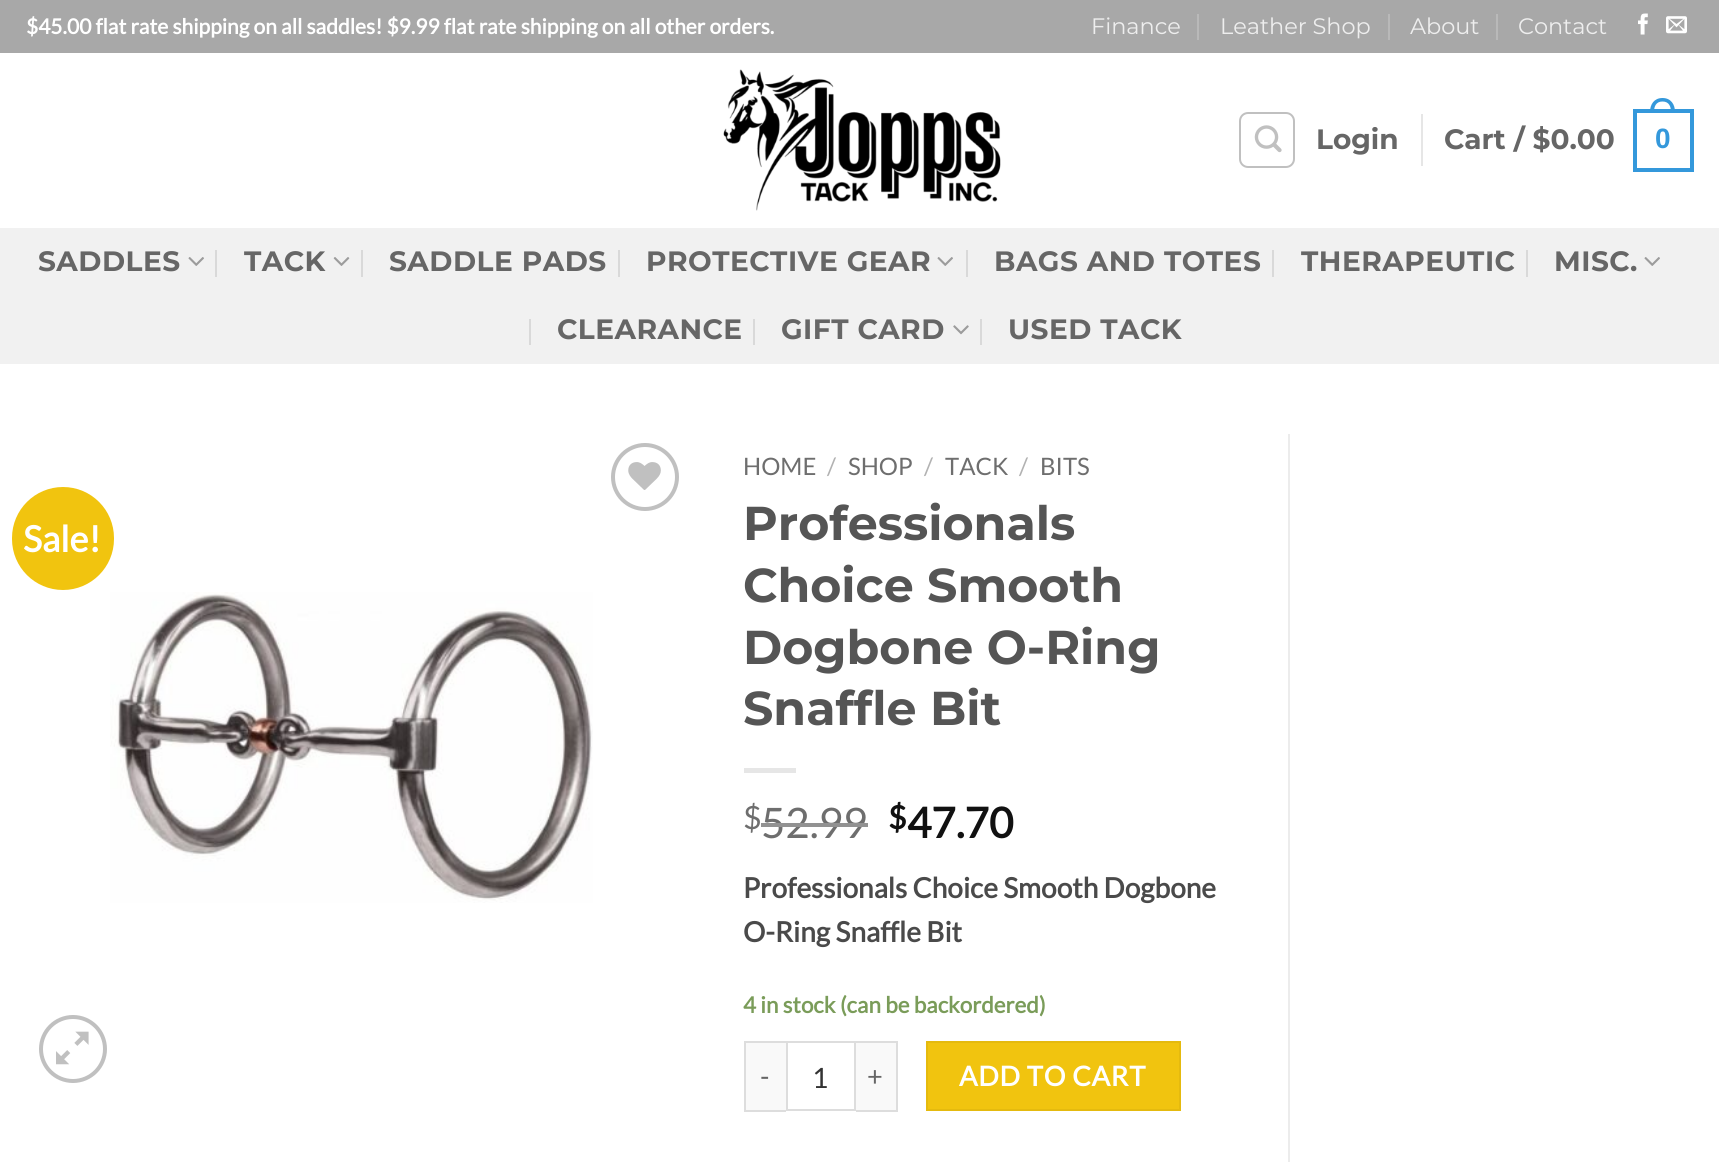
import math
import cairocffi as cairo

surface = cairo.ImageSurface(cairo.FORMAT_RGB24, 1719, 1162)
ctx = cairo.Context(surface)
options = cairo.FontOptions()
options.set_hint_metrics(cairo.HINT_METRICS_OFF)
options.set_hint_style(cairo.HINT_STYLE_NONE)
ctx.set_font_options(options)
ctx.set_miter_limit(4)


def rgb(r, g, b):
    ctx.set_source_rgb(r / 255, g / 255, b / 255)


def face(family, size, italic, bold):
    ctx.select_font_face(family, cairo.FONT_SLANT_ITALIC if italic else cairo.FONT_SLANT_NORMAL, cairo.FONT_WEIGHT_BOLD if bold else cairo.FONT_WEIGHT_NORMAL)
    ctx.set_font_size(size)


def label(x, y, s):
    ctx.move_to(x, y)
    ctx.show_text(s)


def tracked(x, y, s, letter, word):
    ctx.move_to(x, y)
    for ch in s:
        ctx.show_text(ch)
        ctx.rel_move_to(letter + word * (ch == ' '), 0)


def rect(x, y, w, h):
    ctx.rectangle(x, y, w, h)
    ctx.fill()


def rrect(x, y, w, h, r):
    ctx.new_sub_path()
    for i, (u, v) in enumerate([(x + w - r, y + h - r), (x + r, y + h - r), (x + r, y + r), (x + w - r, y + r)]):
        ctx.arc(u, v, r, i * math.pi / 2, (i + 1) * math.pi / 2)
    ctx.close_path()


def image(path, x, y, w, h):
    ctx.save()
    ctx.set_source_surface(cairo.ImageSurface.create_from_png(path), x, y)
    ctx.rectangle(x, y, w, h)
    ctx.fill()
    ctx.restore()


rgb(255, 255, 255)
ctx.paint()
rgb(168, 168, 168)
rect(0, 0, 1719, 53)
face('Lato', 21, 0, 1)
rgb(255, 255, 255)
label(26, 34, '$45.00 flat rate shipping on all saddles! $9.99 flat rate shipping on all other orders.')
face('Montserrat', 22.4, 0, 0)
rgb(238, 238, 238)
label(1091, 34, 'Finance')
rgb(185, 185, 185)
rect(1197, 14, 2, 26)
rgb(238, 238, 238)
label(1220, 34, 'Leather Shop')
rgb(185, 185, 185)
rect(1388, 14, 2, 26)
rgb(238, 238, 238)
label(1410, 34, 'About')
rgb(185, 185, 185)
rect(1496, 14, 2, 26)
rgb(238, 238, 238)
label(1518, 34, 'Contact')
image('image0.png', 1638, 13, 10, 22)
image('image1.png', 1666, 16, 21, 18)
image('image2.png', 723, 69, 278, 142)
rrect(1240, 113, 54, 54, 8)
rgb(192, 192, 192)
ctx.stroke()
image('image3.png', 1254, 125, 28, 28)
face('Montserrat', 28, 0, 1)
rgb(102, 102, 102)
label(1316, 149, 'Login')
rgb(230, 230, 230)
rect(1421, 114, 2, 52)
rgb(102, 102, 102)
label(1444, 149, 'Cart / $0.00')
ctx.rectangle(1635, 111, 57, 59)
rgb(52, 152, 219)
ctx.set_line_width(4)
ctx.stroke()
ctx.set_fill_rule(cairo.FILL_RULE_EVEN_ODD)
ctx.new_path()
ctx.move_to(1662.5, 98)
ctx.curve_to(1671, 98, 1675, 104.5, 1675, 112)
ctx.line_to(1650, 112)
ctx.curve_to(1650, 104.5, 1654, 98, 1662.5, 98)
ctx.close_path()
ctx.move_to(1662.5, 101.5)
ctx.curve_to(1669, 101.5, 1671, 106.5, 1671, 112)
ctx.line_to(1654, 112)
ctx.curve_to(1654, 106.5, 1656, 101.5, 1662.5, 101.5)
ctx.close_path()
ctx.fill()
face('Liberation Sans', 28, 0, 1)
label(1655, 148, '0')
rgb(241, 241, 241)
rect(0, 228, 1719, 136)
face('Montserrat', 28, 0, 1)
rgb(102, 102, 102)
tracked(38, 271, 'SADDLES', 0.5, 0)
image('image4.png', 188, 257, 16, 9)
rgb(217, 217, 217)
rect(215, 250, 2, 27)
rgb(102, 102, 102)
tracked(244, 271, 'TACK', 0.5, 0)
image('image5.png', 333, 257, 17, 9)
rgb(217, 217, 217)
rect(361, 250, 2, 27)
rgb(102, 102, 102)
tracked(389, 271, 'SADDLE PADS', 0.5, 0)
rgb(217, 217, 217)
rect(618, 250, 2, 27)
rgb(102, 102, 102)
tracked(646, 271, 'PROTECTIVE GEAR', 0.5, 0)
image('image4.png', 937, 257, 16, 9)
rgb(217, 217, 217)
rect(966, 250, 2, 27)
rgb(102, 102, 102)
tracked(994, 271, 'BAGS AND TOTES', 0.5, 0)
rgb(217, 217, 217)
rect(1272, 250, 2, 27)
rgb(102, 102, 102)
tracked(1301, 271, 'THERAPEUTIC', 0.5, 0)
rgb(217, 217, 217)
rect(1526, 250, 2, 27)
rgb(102, 102, 102)
tracked(1554, 271, 'MISC.', 0.5, 0)
image('image4.png', 1644, 257, 16, 9)
rgb(217, 217, 217)
rect(529, 319, 2, 26)
rgb(102, 102, 102)
tracked(557, 339, 'CLEARANCE', 0.5, 0)
rgb(217, 217, 217)
rect(753, 319, 2, 26)
rgb(102, 102, 102)
tracked(781, 339, 'GIFT CARD', 0.5, 0)
image('image6.png', 953, 325, 16, 10)
rgb(217, 217, 217)
rect(980, 319, 2, 26)
rgb(102, 102, 102)
tracked(1008, 339, 'USED TACK', 0.5, 0)
ctx.new_path()
ctx.arc(645, 477, 32, 0, 2 * math.pi)
rgb(192, 192, 192)
ctx.stroke()
image('image7.png', 628, 462, 33, 28)
rgb(241, 196, 15)
rrect(12, 487, 102, 103, 51)
ctx.fill()
face('Lato', 36, 0, 1)
rgb(255, 255, 255)
label(23, 552, 'Sale!')
image('image8.png', 110, 592, 483, 311)
ctx.arc(73, 1049, 32, 0, 2 * math.pi)
rgb(192, 192, 192)
ctx.stroke()
image('image9.png', 56, 1031, 33, 34)
rgb(236, 236, 236)
rect(1288, 434, 2, 728)
face('Lato', 24, 0, 0)
rgb(110, 110, 110)
label(743, 475, 'HOME')
rgb(178, 178, 178)
label(827, 475, '/')
rgb(110, 110, 110)
label(848, 475, 'SHOP')
rgb(178, 178, 178)
label(924, 475, '/')
rgb(110, 110, 110)
label(945, 475, 'TACK')
rgb(178, 178, 178)
label(1019, 475, '/')
rgb(110, 110, 110)
label(1040, 475, 'BITS')
face('Montserrat', 47.5, 0, 1)
rgb(85, 85, 85)
label(743, 540, 'Professionals')
label(743, 602, 'Choice Smooth')
label(743, 664, 'Dogbone O-Ring')
label(743, 725, 'Snaffle Bit')
rgb(230, 230, 230)
rect(744, 768, 52, 5)
face('Lato', 32, 0, 0)
rgb(110, 110, 110)
label(743, 829, '$')
face('Lato', 42, 0, 0)
label(761, 838, '52.99')
rgb(146, 146, 146)
rect(761, 823, 107, 4)
face('Lato', 32, 0, 1)
rgb(17, 17, 17)
label(888, 829, '$')
face('Lato', 42, 0, 1)
label(907, 838, '47.70')
face('Lato', 28, 0, 1)
rgb(74, 74, 74)
label(743, 898, 'Professionals Choice Smooth Dogbone')
label(743, 942, 'O-Ring Snaffle Bit')
face('Lato', 22.4, 0, 1)
rgb(122, 156, 89)
label(743, 1013, '4 in stock (can be backordered)')
rgb(249, 249, 249)
rect(746, 1043, 40, 67)
rgb(221, 221, 221)
rect(744, 1041, 42, 2)
rect(744, 1110, 42, 2)
rect(744, 1041, 2, 70)
face('Lato', 27.25, 0, 0)
rgb(102, 102, 102)
tracked(760, 1086, '-', 0.75, 0)
ctx.rectangle(787, 1042, 68, 68)
rgb(221, 221, 221)
ctx.set_line_width(2)
ctx.stroke()
face('Lato', 28, 0, 0)
rgb(51, 51, 51)
label(812, 1088, '1')
rgb(249, 249, 249)
rect(856, 1043, 40, 67)
rgb(221, 221, 221)
rect(856, 1041, 42, 2)
rect(896, 1041, 2, 70)
rect(856, 1110, 42, 2)
face('Lato', 27.25, 0, 0)
rgb(102, 102, 102)
tracked(867, 1086, '+', 0.75, 0)
rgb(241, 196, 15)
ctx.rectangle(927, 1042, 253, 68)
ctx.fill_preserve()
rgb(229, 186, 14)
ctx.stroke()
face('Lato', 27.25, 0, 1)
rgb(255, 255, 255)
tracked(959, 1086, 'ADD TO CART', 0.75, 0)
surface.write_to_png('render.png')
